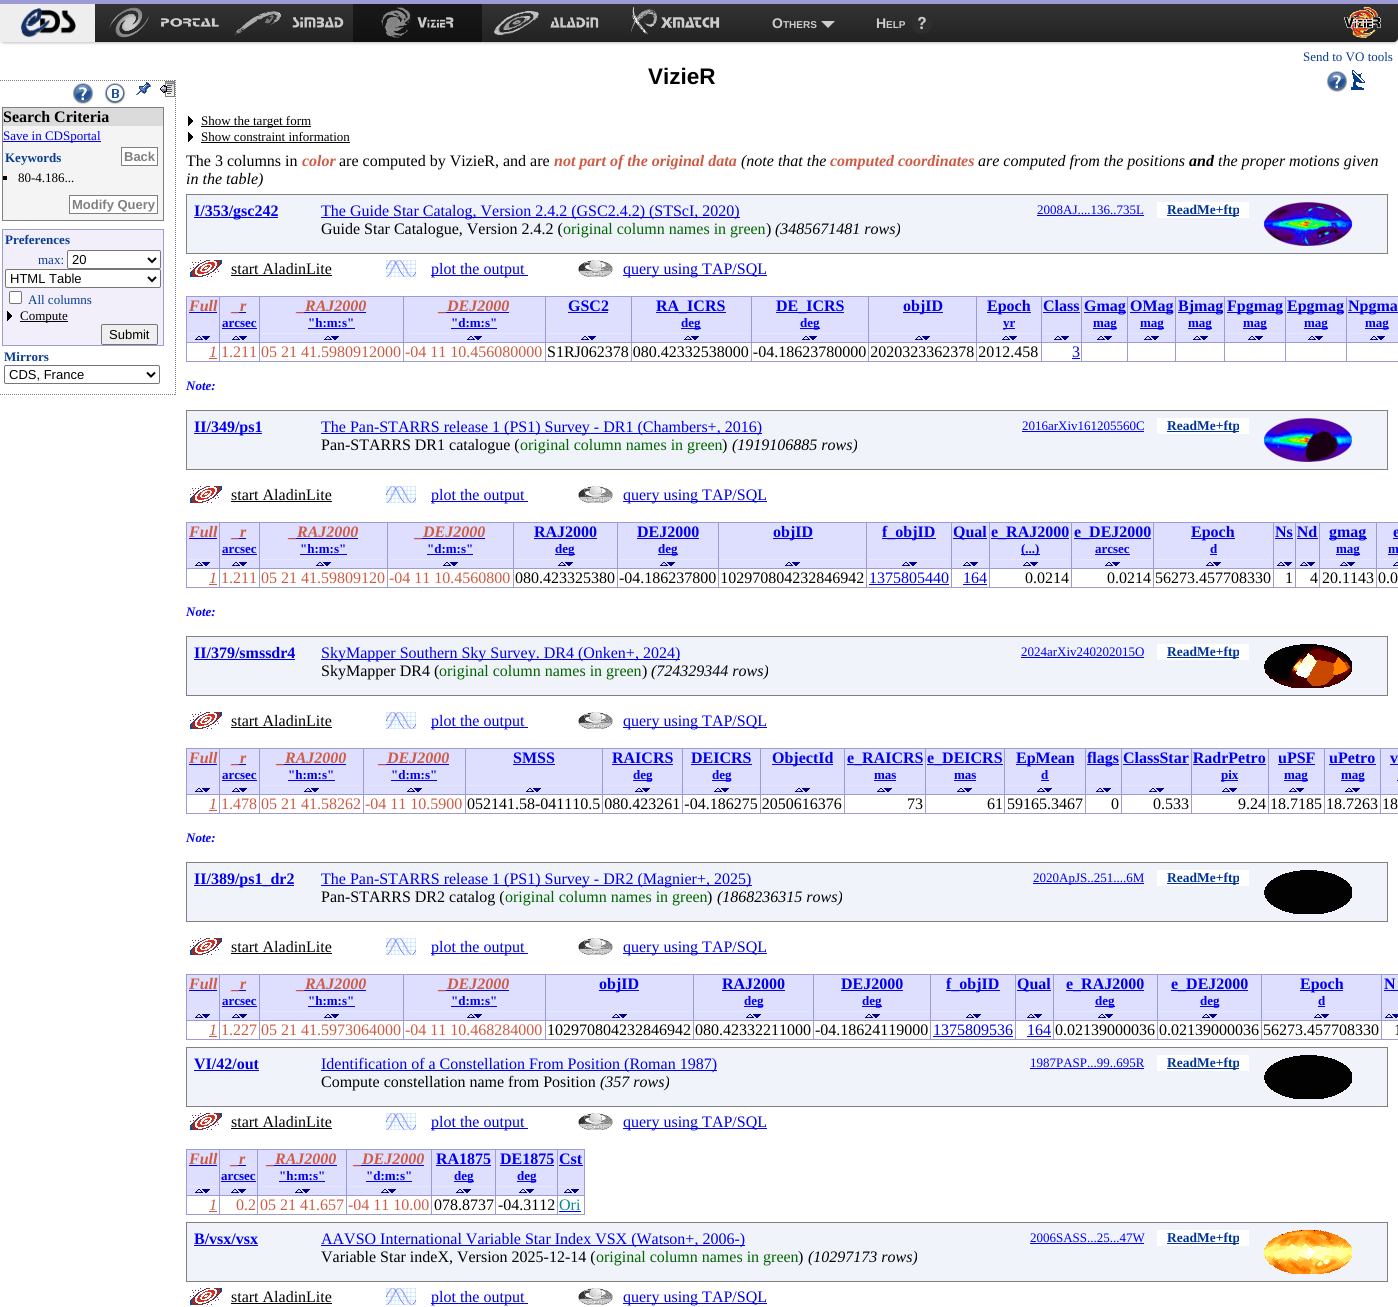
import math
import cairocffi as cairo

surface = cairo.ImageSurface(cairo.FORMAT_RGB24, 1398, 1307)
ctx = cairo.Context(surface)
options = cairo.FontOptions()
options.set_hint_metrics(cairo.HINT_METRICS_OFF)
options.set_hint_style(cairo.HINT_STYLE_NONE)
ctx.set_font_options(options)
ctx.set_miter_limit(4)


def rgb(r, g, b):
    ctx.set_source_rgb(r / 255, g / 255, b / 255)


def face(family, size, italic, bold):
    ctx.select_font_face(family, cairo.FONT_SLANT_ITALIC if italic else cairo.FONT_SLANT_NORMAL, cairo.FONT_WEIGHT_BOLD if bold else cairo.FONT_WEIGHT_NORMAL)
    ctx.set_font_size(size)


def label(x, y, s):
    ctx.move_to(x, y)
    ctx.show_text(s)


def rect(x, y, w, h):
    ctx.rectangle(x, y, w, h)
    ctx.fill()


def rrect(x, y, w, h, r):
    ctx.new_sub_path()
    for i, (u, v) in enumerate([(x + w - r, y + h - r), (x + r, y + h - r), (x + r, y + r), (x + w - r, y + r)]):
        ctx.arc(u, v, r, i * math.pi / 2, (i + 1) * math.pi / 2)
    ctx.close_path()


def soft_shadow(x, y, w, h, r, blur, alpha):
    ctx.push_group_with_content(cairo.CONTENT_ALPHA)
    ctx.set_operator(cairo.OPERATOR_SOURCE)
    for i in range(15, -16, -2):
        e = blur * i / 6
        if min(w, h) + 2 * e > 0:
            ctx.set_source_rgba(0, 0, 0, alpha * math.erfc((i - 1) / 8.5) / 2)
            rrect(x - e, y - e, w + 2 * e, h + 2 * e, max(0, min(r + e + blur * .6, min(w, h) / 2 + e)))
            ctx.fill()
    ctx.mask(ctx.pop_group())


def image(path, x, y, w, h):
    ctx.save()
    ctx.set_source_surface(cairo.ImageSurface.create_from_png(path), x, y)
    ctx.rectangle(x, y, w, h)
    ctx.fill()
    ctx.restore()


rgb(255, 255, 255)
ctx.paint()
rgb(0, 0, 0)
soft_shadow(0, 1, 1398, 42, 4, 1.5, 0.25)
gradient = cairo.LinearGradient(699, 4, 699, 42)
gradient.add_color_stop_rgba(0, 0.2, 0.2, 0.2, 1)
gradient.add_color_stop_rgba(1, 0.133, 0.133, 0.133, 1)
ctx.set_source(gradient)
ctx.new_path()
ctx.move_to(0, 4)
ctx.line_to(1398, 4)
ctx.line_to(1398, 38)
ctx.curve_to(1398, 40, 1396, 42, 1394, 42)
ctx.line_to(4, 42)
ctx.curve_to(2, 42, 0, 40, 0, 38)
ctx.close_path()
ctx.fill()
ctx.set_source_rgba(0, 0, 0, 0.1)
ctx.new_path()
ctx.move_to(0, 37)
ctx.line_to(0, 38)
ctx.curve_to(0, 40, 2, 42, 4, 42)
ctx.line_to(1394, 42)
ctx.curve_to(1396, 42, 1398, 40, 1398, 38)
ctx.line_to(1398, 37)
ctx.curve_to(1398, 39, 1396, 41, 1394, 41)
ctx.line_to(4, 41)
ctx.curve_to(2, 41, 0, 39, 0, 37)
ctx.close_path()
ctx.fill()
rgb(156, 155, 213)
rect(0, 0, 1398, 4)
rgb(238, 238, 238)
rect(0, 4, 95, 38)
image('image0.png', 20, 8, 56, 30)
image('image1.png', 109, 7, 40, 31)
image('image2.png', 161, 18, 58, 9)
image('image3.png', 234, 11, 47, 25)
image('image4.png', 292, 17, 52, 11)
ctx.set_source_rgba(0, 0, 0, 0.5)
rect(353, 4, 129, 38)
image('image5.png', 381, 7, 30, 31)
image('image6.png', 417, 17, 37, 11)
image('image7.png', 494, 10, 45, 26)
image('image8.png', 550, 17, 49, 11)
image('image9.png', 630, 6, 27, 29)
image('image10.png', 661, 17, 59, 11)
face('Liberation Sans', 14, 0, 1)
rgb(204, 204, 204)
label(772, 28, 'O')
face('Liberation Sans', 10, 0, 1)
label(783, 28, 'THERS')
ctx.new_path()
ctx.move_to(821, 21)
ctx.line_to(835, 21)
ctx.line_to(828, 28)
ctx.close_path()
ctx.fill()
face('Liberation Sans', 14, 0, 1)
label(876, 28, 'H')
face('Liberation Sans', 10, 0, 1)
label(886, 28, 'ELP')
image('image11.png', 912, 16, 20, 17)
image('image12.png', 1344, 6, 37, 32)
ctx.new_path()
ctx.move_to(0, 80.5)
ctx.line_to(176, 80.5)
rgb(128, 128, 128)
ctx.set_line_width(1)
ctx.set_dash([1, 1])
ctx.stroke()
ctx.new_path()
ctx.move_to(175.5, 80)
ctx.line_to(175.5, 395)
ctx.stroke()
ctx.new_path()
ctx.move_to(0, 394.5)
ctx.line_to(176, 394.5)
ctx.stroke()
image('image13.png', 72, 83, 22, 22)
image('image14.png', 104, 83, 22, 22)
image('image15.png', 136, 82, 15, 13)
image('image16.png', 160, 81, 15, 16)
rgb(244, 244, 244)
rect(3, 126, 160, 94)
ctx.rectangle(2.5, 107.5, 161, 113)
rgb(128, 128, 128)
ctx.set_dash([])
ctx.stroke()
rgb(219, 219, 219)
rect(3, 108, 160, 18)
face('Liberation Serif', 16, 0, 1)
rgb(0, 0, 0)
label(3, 122, 'Search Criteria')
rgb(0, 0, 238)
rect(3, 141, 98, 1)
face('Liberation Serif', 13, 0, 0)
label(3, 140, 'Save in CDSportal')
face('Liberation Serif', 13, 0, 1)
rgb(8, 60, 145)
label(5, 162, 'Keywords')
rgb(255, 255, 255)
ctx.rectangle(121.5, 147.5, 36, 18)
ctx.fill_preserve()
rgb(128, 128, 128)
ctx.stroke()
face('Liberation Sans', 13, 0, 1)
label(124, 161, 'Back')
rgb(0, 0, 0)
rect(3, 176, 4, 4)
face('Liberation Serif', 13, 0, 0)
label(18, 182, '80-4.186...')
rgb(255, 255, 255)
ctx.rectangle(69.5, 195.5, 88, 18)
ctx.fill_preserve()
rgb(128, 128, 128)
ctx.stroke()
face('Liberation Sans', 13, 0, 1)
label(72, 209, 'Modify Query')
rgb(242, 239, 251)
ctx.rectangle(2.5, 229.5, 161, 116)
ctx.fill_preserve()
rgb(156, 155, 213)
ctx.stroke()
face('Liberation Serif', 13, 0, 1)
rgb(8, 60, 145)
label(5, 244, 'Preferences')
face('Liberation Serif', 13, 0, 0)
label(38, 264, 'max:')
rgb(255, 255, 255)
rrect(67.5, 250.5, 93, 18, 1.5)
ctx.fill_preserve()
rgb(118, 118, 118)
ctx.stroke()
ctx.new_path()
ctx.move_to(148, 258)
ctx.line_to(152, 262)
ctx.line_to(156, 258)
rgb(0, 0, 0)
ctx.set_line_width(2)
ctx.stroke()
face('Liberation Sans', 13, 0, 0)
label(72, 264, '20')
rgb(255, 255, 255)
rrect(5.5, 269.5, 155, 18, 1.5)
ctx.fill_preserve()
rgb(118, 118, 118)
ctx.set_line_width(1)
ctx.stroke()
ctx.new_path()
ctx.move_to(148, 277)
ctx.line_to(152, 281)
ctx.line_to(156, 277)
rgb(0, 0, 0)
ctx.set_line_width(2)
ctx.stroke()
label(10, 283, 'HTML Table')
rgb(255, 255, 255)
rrect(9.5, 291.5, 12, 12, 1.5)
ctx.fill_preserve()
rgb(118, 118, 118)
ctx.set_line_width(1)
ctx.stroke()
face('Liberation Serif', 13, 0, 0)
rgb(8, 60, 145)
label(28, 304, 'All columns')
image('image17.png', 7, 311, 5, 10)
rgb(0, 0, 0)
rect(20, 321, 48, 1)
label(20, 320, 'Compute')
rgb(239, 239, 239)
rrect(101.5, 324.5, 56, 20, 1.5)
ctx.fill_preserve()
rgb(118, 118, 118)
ctx.stroke()
face('Liberation Sans', 13, 0, 0)
rgb(0, 0, 0)
label(109, 339, 'Submit')
face('Liberation Serif', 13, 0, 1)
rgb(8, 60, 145)
label(4, 361, 'Mirrors')
rrect(4.5, 365.5, 155, 18, 1.5)
rgb(118, 118, 118)
ctx.stroke()
ctx.new_path()
ctx.move_to(147, 372.5)
ctx.line_to(151, 376.5)
ctx.line_to(155, 372.5)
rgb(0, 0, 0)
ctx.set_line_width(2)
ctx.stroke()
face('Liberation Sans', 13, 0, 0)
label(9, 379, 'CDS, France')
face('Liberation Serif', 13, 0, 0)
rgb(8, 60, 145)
label(1303, 61, 'Send to VO tools')
image('image13.png', 1326, 71, 22, 22)
image('image18.png', 1351, 70, 14, 20)
image('image19.png', 188, 116, 5, 10)
rgb(0, 0, 0)
rect(201, 126, 110, 1)
label(201, 125, 'Show the target form')
image('image19.png', 188, 132, 5, 10)
label(201, 141, 'Show constraint information')
rect(201, 142, 149, 1)
face('Liberation Serif', 16, 0, 0)
label(186, 166, 'The 3 columns in')
face('Liberation Serif', 16, 1, 1)
rgb(205, 91, 69)
label(302, 166, 'color')
face('Liberation Serif', 16, 0, 0)
rgb(0, 0, 0)
label(339, 166, 'are computed by VizieR, and are')
face('Liberation Serif', 16, 1, 1)
rgb(205, 91, 69)
label(554, 166, 'not part of the original data')
face('Liberation Serif', 16, 1, 0)
rgb(0, 0, 0)
label(741, 166, '(note that the')
face('Liberation Serif', 16, 1, 1)
rgb(205, 91, 69)
label(830, 166, 'computed coordinates')
face('Liberation Serif', 16, 1, 0)
rgb(0, 0, 0)
label(978, 166, 'are computed from the positions')
face('Liberation Serif', 16, 1, 1)
label(1189, 166, 'and')
face('Liberation Serif', 16, 1, 0)
label(1218, 166, 'the proper motions given')
label(186, 184, 'in the table)')
rgb(241, 243, 251)
ctx.rectangle(186.5, 194.5, 1201, 59)
ctx.fill_preserve()
rgb(128, 128, 128)
ctx.set_line_width(1)
ctx.stroke()
rgb(0, 0, 238)
rect(194, 217, 84, 1)
face('Liberation Serif', 16, 0, 1)
label(194, 216, 'I/353/gsc242')
rect(321, 217, 419, 1)
face('Liberation Serif', 16, 0, 0)
label(321, 216, 'The Guide Star Catalog, Version 2.4.2 (GSC2.4.2) (STScI, 2020)')
face('Liberation Serif', 13, 0, 0)
rgb(0, 0, 255)
label(1037, 214, '2008AJ....136..735L')
rect(1037, 215, 107, 1)
rgb(255, 255, 255)
rect(1157, 202, 92, 16)
rgb(0, 51, 153)
rect(1167, 215, 72, 1)
face('Liberation Serif', 13.5, 0, 1)
label(1167, 214, 'ReadMe+ftp')
face('Liberation Serif', 16, 0, 0)
rgb(0, 0, 0)
label(321, 234, 'Guide Star Catalogue, Version 2.4.2 (')
rgb(0, 100, 0)
label(563, 234, 'original column names in green')
rgb(0, 0, 0)
label(766, 234, ')')
face('Liberation Serif', 16, 1, 0)
label(775, 234, '(3485671481 rows)')
image('image20.png', 1264, 202, 88, 44)
image('image21.png', 190, 260, 32, 17)
face('Liberation Serif', 16, 0, 0)
label(231, 274, 'start AladinLite')
rect(231, 275, 101, 1)
image('image22.png', 386, 260, 30, 17)
rgb(0, 0, 238)
rect(431, 275, 97, 1)
label(431, 274, 'plot the output')
image('image23.png', 578, 260, 35, 17)
rect(623, 275, 144, 1)
label(623, 274, 'query using TAP/SQL')
rgb(156, 155, 213)
rect(186, 296, 1212, 1)
rect(186, 296, 1, 66)
rgb(222, 222, 255)
rect(187, 297, 32, 45)
rgb(156, 155, 213)
rect(219, 297, 1, 65)
rect(187, 342, 33, 1)
face('Liberation Serif', 16, 1, 1)
rgb(205, 91, 69)
label(189, 311, 'Full')
rgb(0, 0, 238)
rect(189, 312, 28, 1)
image('image24.png', 195, 336, 15, 4)
ctx.new_path()
ctx.move_to(189, 333.5)
ctx.line_to(217, 333.5)
rgb(242, 239, 251)
ctx.set_dash([1, 1])
ctx.stroke()
rgb(222, 222, 255)
rect(220, 297, 39, 45)
rgb(156, 155, 213)
rect(259, 297, 1, 65)
rect(220, 342, 40, 1)
rgb(0, 0, 238)
rect(232, 312, 14, 1)
rgb(205, 91, 69)
label(232, 311, '_r')
face('Liberation Serif', 13, 0, 1)
rgb(0, 0, 238)
label(222, 327, 'arcsec')
rect(222, 328, 35, 1)
image('image24.png', 232, 336, 15, 4)
ctx.new_path()
ctx.move_to(221, 333.5)
ctx.line_to(257, 333.5)
rgb(242, 239, 251)
ctx.stroke()
rgb(222, 222, 255)
rect(260, 297, 143, 45)
rgb(156, 155, 213)
rect(403, 297, 1, 65)
rect(260, 342, 144, 1)
rgb(0, 0, 238)
rect(297, 312, 69, 1)
face('Liberation Serif', 16, 1, 1)
rgb(205, 91, 69)
label(297, 311, '_RAJ2000')
face('Liberation Serif', 13, 0, 1)
rgb(0, 0, 238)
label(308, 327, '"h:m:s"')
rect(308, 328, 47, 1)
image('image24.png', 324, 336, 15, 4)
ctx.new_path()
ctx.move_to(261, 333.5)
ctx.line_to(401, 333.5)
rgb(242, 239, 251)
ctx.stroke()
rgb(222, 222, 255)
rect(404, 297, 141, 45)
rgb(156, 155, 213)
rect(545, 297, 1, 65)
rect(404, 342, 142, 1)
rgb(0, 0, 238)
rect(439, 312, 70, 1)
face('Liberation Serif', 16, 1, 1)
rgb(205, 91, 69)
label(439, 311, '_DEJ2000')
face('Liberation Serif', 13, 0, 1)
rgb(0, 0, 238)
label(451, 327, '"d:m:s"')
rect(451, 328, 46, 1)
image('image24.png', 467, 336, 15, 4)
ctx.new_path()
ctx.move_to(406, 333.5)
ctx.line_to(543, 333.5)
rgb(242, 239, 251)
ctx.stroke()
rgb(222, 222, 255)
rect(546, 297, 85, 45)
rgb(156, 155, 213)
rect(631, 297, 1, 65)
rect(546, 342, 86, 1)
face('Liberation Serif', 16, 0, 1)
rgb(0, 0, 238)
label(568, 311, 'GSC2')
rect(568, 312, 40, 1)
image('image24.png', 581, 336, 15, 4)
ctx.new_path()
ctx.move_to(547, 333.5)
ctx.line_to(629, 333.5)
rgb(242, 239, 251)
ctx.stroke()
rgb(222, 222, 255)
rect(632, 297, 119, 45)
rgb(156, 155, 213)
rect(751, 297, 1, 65)
rect(632, 342, 120, 1)
rgb(0, 0, 238)
rect(656, 312, 70, 1)
label(656, 311, 'RA_ICRS')
rect(681, 328, 20, 1)
face('Liberation Serif', 13, 0, 1)
label(681, 327, 'deg')
image('image24.png', 684, 336, 15, 4)
ctx.new_path()
ctx.move_to(633, 333.5)
ctx.line_to(749, 333.5)
rgb(242, 239, 251)
ctx.stroke()
rgb(222, 222, 255)
rect(752, 297, 116, 45)
rgb(156, 155, 213)
rect(868, 297, 1, 65)
rect(752, 342, 117, 1)
rgb(0, 0, 238)
rect(776, 312, 68, 1)
face('Liberation Serif', 16, 0, 1)
label(776, 311, 'DE_ICRS')
rect(800, 328, 20, 1)
face('Liberation Serif', 13, 0, 1)
label(800, 327, 'deg')
image('image24.png', 802, 336, 15, 4)
ctx.new_path()
ctx.move_to(753, 333.5)
ctx.line_to(867, 333.5)
rgb(242, 239, 251)
ctx.stroke()
rgb(222, 222, 255)
rect(869, 297, 107, 45)
rgb(156, 155, 213)
rect(976, 297, 1, 65)
rect(869, 342, 108, 1)
rgb(0, 0, 238)
rect(903, 312, 40, 1)
face('Liberation Serif', 16, 0, 1)
label(903, 311, 'objID')
image('image24.png', 915, 336, 15, 4)
ctx.new_path()
ctx.move_to(871, 333.5)
ctx.line_to(975, 333.5)
rgb(242, 239, 251)
ctx.stroke()
rgb(222, 222, 255)
rect(977, 297, 64, 45)
rgb(156, 155, 213)
rect(1041, 297, 1, 65)
rect(977, 342, 65, 1)
rgb(0, 0, 238)
rect(987, 312, 44, 1)
label(987, 311, 'Epoch')
rect(1003, 328, 12, 1)
face('Liberation Serif', 13, 0, 1)
label(1003, 327, 'yr')
image('image24.png', 1002, 336, 15, 4)
ctx.new_path()
ctx.move_to(979, 333.5)
ctx.line_to(1039, 333.5)
rgb(242, 239, 251)
ctx.stroke()
rgb(222, 222, 255)
rect(1042, 297, 39, 45)
rgb(156, 155, 213)
rect(1081, 297, 1, 65)
rect(1042, 342, 40, 1)
face('Liberation Serif', 16, 0, 1)
rgb(0, 0, 238)
label(1043, 311, 'Class')
rect(1043, 312, 37, 1)
image('image24.png', 1054, 336, 15, 4)
ctx.new_path()
ctx.move_to(1043, 333.5)
ctx.line_to(1080, 333.5)
rgb(242, 239, 251)
ctx.stroke()
rgb(222, 222, 255)
rect(1082, 297, 45, 45)
rgb(156, 155, 213)
rect(1127, 297, 1, 65)
rect(1082, 342, 46, 1)
rgb(0, 0, 238)
rect(1084, 312, 42, 1)
label(1084, 311, 'Gmag')
rect(1093, 328, 24, 1)
face('Liberation Serif', 13, 0, 1)
label(1093, 327, 'mag')
image('image24.png', 1097, 336, 15, 4)
ctx.new_path()
ctx.move_to(1084, 333.5)
ctx.line_to(1126, 333.5)
rgb(242, 239, 251)
ctx.stroke()
rgb(222, 222, 255)
rect(1128, 297, 47, 45)
rgb(156, 155, 213)
rect(1175, 297, 1, 65)
rect(1128, 342, 48, 1)
rgb(0, 0, 238)
rect(1130, 312, 43, 1)
face('Liberation Serif', 16, 0, 1)
label(1130, 311, 'OMag')
rect(1140, 328, 24, 1)
face('Liberation Serif', 13, 0, 1)
label(1140, 327, 'mag')
image('image24.png', 1144, 336, 15, 4)
ctx.new_path()
ctx.move_to(1130, 333.5)
ctx.line_to(1173, 333.5)
rgb(242, 239, 251)
ctx.stroke()
rgb(222, 222, 255)
rect(1176, 297, 48, 45)
rgb(156, 155, 213)
rect(1224, 297, 1, 65)
rect(1176, 342, 49, 1)
rgb(0, 0, 238)
rect(1178, 312, 45, 1)
face('Liberation Serif', 16, 0, 1)
label(1178, 311, 'Bjmag')
rect(1188, 328, 24, 1)
face('Liberation Serif', 13, 0, 1)
label(1188, 327, 'mag')
image('image24.png', 1193, 336, 15, 4)
ctx.new_path()
ctx.move_to(1178, 333.5)
ctx.line_to(1223, 333.5)
rgb(242, 239, 251)
ctx.stroke()
rgb(222, 222, 255)
rect(1225, 297, 60, 45)
rgb(156, 155, 213)
rect(1285, 297, 1, 65)
rect(1225, 342, 61, 1)
rgb(0, 0, 238)
rect(1227, 312, 56, 1)
face('Liberation Serif', 16, 0, 1)
label(1227, 311, 'Fpgmag')
rect(1243, 328, 24, 1)
face('Liberation Serif', 13, 0, 1)
label(1243, 327, 'mag')
image('image24.png', 1248, 336, 15, 4)
ctx.new_path()
ctx.move_to(1227, 333.5)
ctx.line_to(1283, 333.5)
rgb(242, 239, 251)
ctx.stroke()
rgb(222, 222, 255)
rect(1286, 297, 60, 45)
rgb(156, 155, 213)
rect(1346, 297, 1, 65)
rect(1286, 342, 112, 1)
rgb(0, 0, 238)
rect(1287, 312, 57, 1)
face('Liberation Serif', 16, 0, 1)
label(1287, 311, 'Epgmag')
rect(1304, 328, 24, 1)
face('Liberation Serif', 13, 0, 1)
label(1304, 327, 'mag')
image('image24.png', 1308, 336, 15, 4)
ctx.new_path()
ctx.move_to(1287, 333.5)
ctx.line_to(1344, 333.5)
rgb(242, 239, 251)
ctx.stroke()
rgb(222, 222, 255)
rect(1347, 297, 51, 45)
rgb(0, 0, 238)
rect(1348, 312, 50, 1)
face('Liberation Serif', 16, 0, 1)
label(1348, 311, 'Npgma')
rect(1365, 328, 24, 1)
face('Liberation Serif', 13, 0, 1)
label(1365, 327, 'mag')
image('image24.png', 1370, 336, 15, 4)
ctx.new_path()
ctx.move_to(1348, 333.5)
ctx.line_to(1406, 333.5)
rgb(242, 239, 251)
ctx.stroke()
rgb(156, 155, 213)
rect(187, 361, 1211, 1)
face('Liberation Serif', 16, 1, 0)
rgb(205, 91, 69)
label(209, 357, '1')
rect(209, 358, 8, 1)
face('Liberation Serif', 16, 0, 0)
label(221, 357, '1.211 05 21 41.5980912000 -04 11 10.456080000')
rgb(0, 0, 0)
label(547, 357, 'S1RJ062378 080.42332538000 -04.18623780000 2020323362378 2012.458')
rgb(0, 0, 238)
label(1072, 357, '3')
rect(1072, 358, 8, 1)
face('Liberation Serif', 13, 1, 1)
rgb(0, 0, 255)
label(186, 390, 'Note:')
rgb(241, 243, 251)
ctx.rectangle(186.5, 410.5, 1201, 59)
ctx.fill_preserve()
rgb(128, 128, 128)
ctx.set_dash([])
ctx.stroke()
rgb(0, 0, 238)
rect(194, 433, 68, 1)
face('Liberation Serif', 16, 0, 1)
label(194, 432, 'II/349/ps1')
rect(321, 433, 441, 1)
face('Liberation Serif', 16, 0, 0)
label(321, 432, 'The Pan-STARRS release 1 (PS1) Survey - DR1 (Chambers+, 2016)')
face('Liberation Serif', 13, 0, 0)
rgb(0, 0, 255)
label(1022, 430, '2016arXiv161205560C')
rect(1022, 431, 122, 1)
rgb(255, 255, 255)
rect(1157, 418, 92, 16)
rgb(0, 51, 153)
rect(1167, 431, 72, 1)
face('Liberation Serif', 13.5, 0, 1)
label(1167, 430, 'ReadMe+ftp')
face('Liberation Serif', 16, 0, 0)
rgb(0, 0, 0)
label(321, 450, 'Pan-STARRS DR1 catalogue (')
rgb(0, 100, 0)
label(520, 450, 'original column names in green')
rgb(0, 0, 0)
label(722, 450, ')')
face('Liberation Serif', 16, 1, 0)
label(732, 450, '(1919106885 rows)')
image('image25.png', 1264, 418, 88, 44)
image('image21.png', 190, 486, 32, 17)
face('Liberation Serif', 16, 0, 0)
label(231, 500, 'start AladinLite')
rect(231, 501, 101, 1)
image('image22.png', 386, 486, 30, 17)
rgb(0, 0, 238)
rect(431, 501, 97, 1)
label(431, 500, 'plot the output')
image('image23.png', 578, 486, 35, 17)
rect(623, 501, 144, 1)
label(623, 500, 'query using TAP/SQL')
rgb(156, 155, 213)
rect(186, 522, 1212, 1)
rect(186, 522, 1, 66)
rgb(222, 222, 255)
rect(187, 523, 32, 45)
rgb(156, 155, 213)
rect(219, 523, 1, 65)
rect(187, 568, 33, 1)
face('Liberation Serif', 16, 1, 1)
rgb(205, 91, 69)
label(189, 537, 'Full')
rgb(0, 0, 238)
rect(189, 538, 28, 1)
image('image24.png', 195, 562, 15, 4)
ctx.new_path()
ctx.move_to(189, 559.5)
ctx.line_to(217, 559.5)
rgb(242, 239, 251)
ctx.set_dash([1, 1])
ctx.stroke()
rgb(222, 222, 255)
rect(719, 523, 147, 45)
rgb(156, 155, 213)
rect(866, 523, 1, 65)
rect(719, 568, 148, 1)
rgb(0, 0, 238)
rect(773, 538, 40, 1)
face('Liberation Serif', 16, 0, 1)
label(773, 537, 'objID')
image('image24.png', 785, 562, 15, 4)
ctx.new_path()
ctx.move_to(721, 559.5)
ctx.line_to(865, 559.5)
rgb(242, 239, 251)
ctx.stroke()
rgb(222, 222, 255)
rect(867, 523, 84, 45)
rgb(156, 155, 213)
rect(951, 523, 1, 65)
rect(867, 568, 85, 1)
rgb(0, 0, 238)
rect(882, 538, 54, 1)
label(882, 537, 'f_objID')
image('image24.png', 902, 562, 15, 4)
ctx.new_path()
ctx.move_to(869, 559.5)
ctx.line_to(949, 559.5)
rgb(242, 239, 251)
ctx.stroke()
rgb(222, 222, 255)
rect(952, 523, 37, 45)
rgb(156, 155, 213)
rect(989, 523, 1, 65)
rect(952, 568, 38, 1)
rgb(0, 0, 238)
rect(953, 538, 34, 1)
label(953, 537, 'Qual')
image('image24.png', 963, 562, 15, 4)
ctx.new_path()
ctx.move_to(953, 559.5)
ctx.line_to(987, 559.5)
rgb(242, 239, 251)
ctx.stroke()
rgb(222, 222, 255)
rect(1154, 523, 119, 45)
rgb(156, 155, 213)
rect(1273, 523, 1, 65)
rect(1154, 568, 120, 1)
rgb(0, 0, 238)
rect(1191, 538, 44, 1)
label(1191, 537, 'Epoch')
face('Liberation Serif', 13, 0, 1)
label(1210, 553, 'd')
rect(1210, 554, 7, 1)
image('image24.png', 1206, 562, 15, 4)
ctx.new_path()
ctx.move_to(1155, 559.5)
ctx.line_to(1271, 559.5)
rgb(242, 239, 251)
ctx.stroke()
rgb(222, 222, 255)
rect(1296, 523, 23, 45)
rgb(156, 155, 213)
rect(1319, 523, 1, 65)
rect(1296, 568, 24, 1)
rgb(0, 0, 238)
rect(1297, 538, 21, 1)
image('image24.png', 1300, 562, 15, 4)
ctx.new_path()
ctx.move_to(1297, 559.5)
ctx.line_to(1318, 559.5)
rgb(242, 239, 251)
ctx.stroke()
rgb(222, 222, 255)
rect(220, 523, 39, 45)
rgb(156, 155, 213)
rect(259, 523, 1, 65)
rect(220, 568, 40, 1)
rgb(0, 0, 238)
rect(232, 538, 14, 1)
face('Liberation Serif', 16, 1, 1)
rgb(205, 91, 69)
label(232, 537, '_r')
face('Liberation Serif', 13, 0, 1)
rgb(0, 0, 238)
label(222, 553, 'arcsec')
rect(222, 554, 35, 1)
image('image24.png', 232, 562, 15, 4)
ctx.new_path()
ctx.move_to(221, 559.5)
ctx.line_to(257, 559.5)
rgb(242, 239, 251)
ctx.stroke()
rgb(222, 222, 255)
rect(260, 523, 127, 45)
rgb(156, 155, 213)
rect(387, 523, 1, 65)
rect(260, 568, 128, 1)
rgb(0, 0, 238)
rect(289, 538, 69, 1)
face('Liberation Serif', 16, 1, 1)
rgb(205, 91, 69)
label(289, 537, '_RAJ2000')
face('Liberation Serif', 13, 0, 1)
rgb(0, 0, 238)
label(300, 553, '"h:m:s"')
rect(300, 554, 47, 1)
image('image24.png', 316, 562, 15, 4)
ctx.new_path()
ctx.move_to(261, 559.5)
ctx.line_to(385, 559.5)
rgb(242, 239, 251)
ctx.stroke()
rgb(222, 222, 255)
rect(388, 523, 125, 45)
rgb(156, 155, 213)
rect(513, 523, 1, 65)
rect(388, 568, 126, 1)
rgb(0, 0, 238)
rect(415, 538, 70, 1)
face('Liberation Serif', 16, 1, 1)
rgb(205, 91, 69)
label(415, 537, '_DEJ2000')
face('Liberation Serif', 13, 0, 1)
rgb(0, 0, 238)
label(427, 553, '"d:m:s"')
rect(427, 554, 46, 1)
image('image24.png', 443, 562, 15, 4)
ctx.new_path()
ctx.move_to(390, 559.5)
ctx.line_to(511, 559.5)
rgb(242, 239, 251)
ctx.stroke()
rgb(222, 222, 255)
rect(514, 523, 103, 45)
rgb(156, 155, 213)
rect(617, 523, 1, 65)
rect(514, 568, 104, 1)
face('Liberation Serif', 16, 0, 1)
rgb(0, 0, 238)
label(534, 537, 'RAJ2000')
rect(534, 538, 63, 1)
rect(555, 554, 20, 1)
face('Liberation Serif', 13, 0, 1)
label(555, 553, 'deg')
image('image24.png', 558, 562, 15, 4)
ctx.new_path()
ctx.move_to(515, 559.5)
ctx.line_to(615, 559.5)
rgb(242, 239, 251)
ctx.stroke()
rgb(222, 222, 255)
rect(618, 523, 100, 45)
rgb(156, 155, 213)
rect(718, 523, 1, 65)
rect(618, 568, 101, 1)
face('Liberation Serif', 16, 0, 1)
rgb(0, 0, 238)
label(637, 537, 'DEJ2000')
rect(637, 538, 62, 1)
rect(658, 554, 20, 1)
face('Liberation Serif', 13, 0, 1)
label(658, 553, 'deg')
image('image24.png', 660, 562, 15, 4)
ctx.new_path()
ctx.move_to(619, 559.5)
ctx.line_to(717, 559.5)
rgb(242, 239, 251)
ctx.stroke()
rgb(222, 222, 255)
rect(990, 523, 81, 45)
rgb(156, 155, 213)
rect(1071, 523, 1, 65)
rect(990, 568, 82, 1)
rgb(0, 0, 238)
rect(991, 538, 78, 1)
face('Liberation Serif', 16, 0, 1)
label(991, 537, 'e_RAJ2000')
rect(1021, 554, 19, 1)
face('Liberation Serif', 13, 0, 1)
label(1021, 553, '(...)')
image('image24.png', 1023, 562, 15, 4)
ctx.new_path()
ctx.move_to(991, 559.5)
ctx.line_to(1069, 559.5)
rgb(242, 239, 251)
ctx.stroke()
rgb(222, 222, 255)
rect(1072, 523, 81, 45)
rgb(156, 155, 213)
rect(1153, 523, 1, 65)
rect(1072, 568, 82, 1)
rgb(0, 0, 238)
rect(1074, 538, 77, 1)
face('Liberation Serif', 16, 0, 1)
label(1074, 537, 'e_DEJ2000')
face('Liberation Serif', 13, 0, 1)
label(1095, 553, 'arcsec')
rect(1095, 554, 35, 1)
image('image24.png', 1105, 562, 15, 4)
ctx.new_path()
ctx.move_to(1074, 559.5)
ctx.line_to(1151, 559.5)
rgb(242, 239, 251)
ctx.stroke()
rgb(222, 222, 255)
rect(1274, 523, 21, 45)
rgb(156, 155, 213)
rect(1295, 523, 1, 65)
rect(1274, 568, 22, 1)
face('Liberation Serif', 16, 0, 1)
rgb(0, 0, 238)
label(1275, 537, 'Ns Nd')
rect(1275, 538, 18, 1)
image('image24.png', 1277, 562, 15, 4)
ctx.new_path()
ctx.move_to(1275, 559.5)
ctx.line_to(1293, 559.5)
rgb(242, 239, 251)
ctx.stroke()
rgb(222, 222, 255)
rect(1320, 523, 56, 45)
rgb(156, 155, 213)
rect(1376, 523, 1, 65)
rect(1320, 568, 78, 1)
rgb(0, 0, 238)
rect(1329, 538, 38, 1)
label(1329, 537, 'gmag')
rect(1336, 554, 24, 1)
face('Liberation Serif', 13, 0, 1)
label(1336, 553, 'mag')
image('image24.png', 1340, 562, 15, 4)
ctx.new_path()
ctx.move_to(1322, 559.5)
ctx.line_to(1374, 559.5)
rgb(242, 239, 251)
ctx.stroke()
rgb(222, 222, 255)
rect(1377, 523, 21, 45)
face('Liberation Serif', 16, 0, 1)
rgb(0, 0, 238)
label(1393, 537, 'e')
rect(1393, 538, 5, 1)
face('Liberation Serif', 13, 0, 1)
label(1388, 553, 'm')
rect(1388, 554, 10, 1)
image('image26.png', 1393, 562, 5, 4)
ctx.new_path()
ctx.move_to(1378, 559.5)
ctx.line_to(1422, 559.5)
rgb(242, 239, 251)
ctx.stroke()
rgb(156, 155, 213)
rect(187, 587, 1211, 1)
face('Liberation Serif', 16, 1, 0)
rgb(205, 91, 69)
label(209, 583, '1')
rect(209, 584, 8, 1)
face('Liberation Serif', 16, 0, 0)
label(221, 583, '1.211 05 21 41.59809120 -04 11 10.4560800')
rgb(0, 0, 0)
label(515, 583, '080.423325380 -04.186237800 102970804232846942')
rgb(0, 0, 238)
label(869, 583, '1375805440')
rect(869, 584, 80, 1)
label(963, 583, '164')
rect(963, 584, 24, 1)
rgb(0, 0, 0)
label(1025, 583, '0.0214')
label(1107, 583, '0.0214 56273.457708330')
label(1285, 583, '1')
label(1310, 583, '4 20.1143 0.0')
face('Liberation Serif', 13, 1, 1)
rgb(0, 0, 255)
label(186, 616, 'Note:')
rgb(241, 243, 251)
ctx.rectangle(186.5, 636.5, 1201, 59)
ctx.fill_preserve()
rgb(128, 128, 128)
ctx.set_dash([])
ctx.stroke()
face('Liberation Serif', 16, 0, 1)
rgb(0, 0, 238)
label(194, 658, 'II/379/smssdr4')
rect(194, 659, 101, 1)
rect(321, 659, 359, 1)
face('Liberation Serif', 16, 0, 0)
label(321, 658, 'SkyMapper Southern Sky Survey. DR4 (Onken+, 2024)')
face('Liberation Serif', 13, 0, 0)
rgb(0, 0, 255)
label(1021, 656, '2024arXiv240202015O')
rect(1021, 657, 123, 1)
rgb(255, 255, 255)
rect(1157, 644, 92, 16)
rgb(0, 51, 153)
rect(1167, 657, 72, 1)
face('Liberation Serif', 13.5, 0, 1)
label(1167, 656, 'ReadMe+ftp')
face('Liberation Serif', 16, 0, 0)
rgb(0, 0, 0)
label(321, 676, 'SkyMapper DR4 (')
rgb(0, 100, 0)
label(439, 676, 'original column names in green')
rgb(0, 0, 0)
label(642, 676, ')')
face('Liberation Serif', 16, 1, 0)
label(651, 676, '(724329344 rows)')
image('image27.png', 1264, 644, 88, 44)
image('image21.png', 190, 712, 32, 17)
face('Liberation Serif', 16, 0, 0)
label(231, 726, 'start AladinLite')
rect(231, 727, 101, 1)
image('image22.png', 386, 712, 30, 17)
rgb(0, 0, 238)
rect(431, 727, 97, 1)
label(431, 726, 'plot the output')
image('image28.png', 578, 712, 35, 17)
rect(623, 727, 144, 1)
label(623, 726, 'query using TAP/SQL')
rgb(156, 155, 213)
rect(186, 748, 1212, 1)
rect(186, 748, 1, 66)
rgb(222, 222, 255)
rect(187, 749, 32, 45)
rgb(156, 155, 213)
rect(219, 749, 1, 65)
rect(187, 794, 33, 1)
face('Liberation Serif', 16, 1, 1)
rgb(205, 91, 69)
label(189, 763, 'Full')
rgb(0, 0, 238)
rect(189, 764, 28, 1)
image('image24.png', 195, 788, 15, 4)
ctx.new_path()
ctx.move_to(189, 785.5)
ctx.line_to(217, 785.5)
rgb(242, 239, 251)
ctx.set_dash([1, 1])
ctx.stroke()
rgb(222, 222, 255)
rect(761, 749, 83, 45)
rgb(156, 155, 213)
rect(844, 749, 1, 65)
rect(761, 794, 84, 1)
rgb(0, 0, 238)
rect(772, 764, 61, 1)
face('Liberation Serif', 16, 0, 1)
label(772, 763, 'ObjectId')
image('image24.png', 795, 788, 15, 4)
ctx.new_path()
ctx.move_to(762, 785.5)
ctx.line_to(842, 785.5)
rgb(242, 239, 251)
ctx.stroke()
rgb(222, 222, 255)
rect(1122, 749, 69, 45)
rgb(156, 155, 213)
rect(1191, 749, 1, 65)
rect(1122, 794, 70, 1)
rgb(0, 0, 238)
rect(1123, 764, 66, 1)
image('image24.png', 1149, 788, 15, 4)
ctx.new_path()
ctx.move_to(1123, 785.5)
ctx.line_to(1189, 785.5)
rgb(242, 239, 251)
ctx.stroke()
rgb(222, 222, 255)
rect(220, 749, 39, 45)
rgb(156, 155, 213)
rect(259, 749, 1, 65)
rect(220, 794, 40, 1)
rgb(0, 0, 238)
rect(232, 764, 14, 1)
face('Liberation Serif', 16, 1, 1)
rgb(205, 91, 69)
label(232, 763, '_r')
face('Liberation Serif', 13, 0, 1)
rgb(0, 0, 238)
label(222, 779, 'arcsec')
rect(222, 780, 35, 1)
image('image24.png', 232, 788, 15, 4)
ctx.new_path()
ctx.move_to(221, 785.5)
ctx.line_to(257, 785.5)
rgb(242, 239, 251)
ctx.stroke()
rgb(222, 222, 255)
rect(260, 749, 103, 45)
rgb(156, 155, 213)
rect(363, 749, 1, 65)
rect(260, 794, 104, 1)
rgb(0, 0, 238)
rect(277, 764, 69, 1)
face('Liberation Serif', 16, 1, 1)
rgb(205, 91, 69)
label(277, 763, '_RAJ2000')
face('Liberation Serif', 13, 0, 1)
rgb(0, 0, 238)
label(288, 779, '"h:m:s"')
rect(288, 780, 47, 1)
image('image24.png', 304, 788, 15, 4)
ctx.new_path()
ctx.move_to(261, 785.5)
ctx.line_to(361, 785.5)
rgb(242, 239, 251)
ctx.stroke()
rgb(222, 222, 255)
rect(364, 749, 101, 45)
rgb(156, 155, 213)
rect(465, 749, 1, 65)
rect(364, 794, 102, 1)
rgb(0, 0, 238)
rect(379, 764, 70, 1)
face('Liberation Serif', 16, 1, 1)
rgb(205, 91, 69)
label(379, 763, '_DEJ2000')
face('Liberation Serif', 13, 0, 1)
rgb(0, 0, 238)
label(391, 779, '"d:m:s"')
rect(391, 780, 46, 1)
image('image24.png', 407, 788, 15, 4)
ctx.new_path()
ctx.move_to(366, 785.5)
ctx.line_to(463, 785.5)
rgb(242, 239, 251)
ctx.stroke()
rgb(222, 222, 255)
rect(466, 749, 136, 45)
rgb(156, 155, 213)
rect(602, 749, 1, 65)
rect(466, 794, 137, 1)
face('Liberation Serif', 16, 0, 1)
rgb(0, 0, 238)
label(513, 763, 'SMSS')
rect(513, 764, 42, 1)
image('image24.png', 526, 788, 15, 4)
ctx.new_path()
ctx.move_to(467, 785.5)
ctx.line_to(600, 785.5)
rgb(242, 239, 251)
ctx.stroke()
rgb(222, 222, 255)
rect(603, 749, 79, 45)
rgb(156, 155, 213)
rect(682, 749, 1, 65)
rect(603, 794, 80, 1)
rgb(0, 0, 238)
label(612, 763, 'RAICRS')
rect(612, 764, 61, 1)
rect(633, 780, 19, 1)
face('Liberation Serif', 13, 0, 1)
label(633, 779, 'deg')
image('image24.png', 635, 788, 15, 4)
ctx.new_path()
ctx.move_to(605, 785.5)
ctx.line_to(681, 785.5)
rgb(242, 239, 251)
ctx.stroke()
rgb(222, 222, 255)
rect(683, 749, 77, 45)
rgb(156, 155, 213)
rect(760, 749, 1, 65)
rect(683, 794, 78, 1)
face('Liberation Serif', 16, 0, 1)
rgb(0, 0, 238)
label(691, 763, 'DEICRS')
rect(691, 764, 61, 1)
rect(712, 780, 19, 1)
face('Liberation Serif', 13, 0, 1)
label(712, 779, 'deg')
image('image24.png', 714, 788, 15, 4)
ctx.new_path()
ctx.move_to(685, 785.5)
ctx.line_to(758, 785.5)
rgb(242, 239, 251)
ctx.stroke()
rgb(222, 222, 255)
rect(845, 749, 80, 45)
rgb(156, 155, 213)
rect(925, 749, 1, 65)
rect(845, 794, 81, 1)
rgb(0, 0, 238)
rect(847, 764, 76, 1)
face('Liberation Serif', 16, 0, 1)
label(847, 763, 'e_RAICRS')
face('Liberation Serif', 13, 0, 1)
label(874, 779, 'mas')
rect(874, 780, 22, 1)
image('image24.png', 877, 788, 15, 4)
ctx.new_path()
ctx.move_to(847, 785.5)
ctx.line_to(923, 785.5)
rgb(242, 239, 251)
ctx.stroke()
rgb(222, 222, 255)
rect(926, 749, 78, 45)
rgb(156, 155, 213)
rect(1004, 749, 1, 65)
rect(926, 794, 79, 1)
rgb(0, 0, 238)
rect(927, 764, 76, 1)
face('Liberation Serif', 16, 0, 1)
label(927, 763, 'e_DEICRS')
face('Liberation Serif', 13, 0, 1)
label(954, 779, 'mas')
rect(954, 780, 22, 1)
image('image24.png', 957, 788, 15, 4)
ctx.new_path()
ctx.move_to(927, 785.5)
ctx.line_to(1003, 785.5)
rgb(242, 239, 251)
ctx.stroke()
rgb(222, 222, 255)
rect(1005, 749, 80, 45)
rgb(156, 155, 213)
rect(1085, 749, 1, 65)
rect(1005, 794, 81, 1)
rgb(0, 0, 238)
rect(1016, 764, 58, 1)
face('Liberation Serif', 16, 0, 1)
label(1016, 763, 'EpMean')
face('Liberation Serif', 13, 0, 1)
label(1041, 779, 'd')
rect(1041, 780, 8, 1)
image('image24.png', 1037, 788, 15, 4)
ctx.new_path()
ctx.move_to(1007, 785.5)
ctx.line_to(1083, 785.5)
rgb(242, 239, 251)
ctx.stroke()
rgb(222, 222, 255)
rect(1086, 749, 35, 45)
rgb(156, 155, 213)
rect(1121, 749, 1, 65)
rect(1086, 794, 36, 1)
rgb(0, 0, 238)
rect(1087, 764, 32, 1)
rgb(222, 222, 255)
rect(1192, 749, 76, 45)
face('Liberation Serif', 16, 0, 1)
rgb(0, 0, 238)
label(1087, 763, 'flags ClassStar RadrPetro')
image('image24.png', 1096, 788, 15, 4)
ctx.new_path()
ctx.move_to(1087, 785.5)
ctx.line_to(1119, 785.5)
rgb(242, 239, 251)
ctx.stroke()
rgb(222, 222, 255)
rect(1269, 749, 55, 45)
rgb(156, 155, 213)
rect(1324, 749, 1, 65)
rect(1269, 794, 56, 1)
rgb(0, 0, 238)
label(1278, 763, 'uPSF')
rect(1278, 764, 37, 1)
rect(1284, 780, 24, 1)
face('Liberation Serif', 13, 0, 1)
label(1284, 779, 'mag')
image('image24.png', 1289, 788, 15, 4)
ctx.new_path()
ctx.move_to(1270, 785.5)
ctx.line_to(1322, 785.5)
rgb(242, 239, 251)
ctx.stroke()
rgb(222, 222, 255)
rect(1325, 749, 55, 45)
rgb(156, 155, 213)
rect(1380, 749, 1, 65)
rect(1325, 794, 73, 1)
face('Liberation Serif', 16, 0, 1)
rgb(0, 0, 238)
label(1329, 763, 'uPetro')
rect(1329, 764, 47, 1)
rect(1341, 780, 23, 1)
face('Liberation Serif', 13, 0, 1)
label(1341, 779, 'mag')
image('image24.png', 1345, 788, 15, 4)
ctx.new_path()
ctx.move_to(1327, 785.5)
ctx.line_to(1379, 785.5)
rgb(242, 239, 251)
ctx.stroke()
rgb(222, 222, 255)
rect(1381, 749, 17, 45)
face('Liberation Serif', 16, 0, 1)
rgb(0, 0, 238)
label(1390, 763, 'v')
rect(1390, 764, 8, 1)
rect(1397, 780, 1, 1)
ctx.new_path()
ctx.move_to(1383, 785.5)
ctx.line_to(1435, 785.5)
rgb(242, 239, 251)
ctx.stroke()
rgb(156, 155, 213)
rect(1268, 749, 1, 65)
rect(1192, 794, 77, 1)
rgb(0, 0, 238)
rect(1193, 764, 73, 1)
rect(1221, 780, 17, 1)
face('Liberation Serif', 13, 0, 1)
label(1221, 779, 'pix')
image('image24.png', 1222, 788, 15, 4)
ctx.new_path()
ctx.move_to(1193, 785.5)
ctx.line_to(1266, 785.5)
rgb(242, 239, 251)
ctx.stroke()
rgb(156, 155, 213)
rect(187, 813, 1211, 1)
face('Liberation Serif', 16, 1, 0)
rgb(205, 91, 69)
label(209, 809, '1')
rect(209, 810, 8, 1)
face('Liberation Serif', 16, 0, 0)
label(221, 809, '1.478 05 21 41.58262 -04 11 10.5900')
rgb(0, 0, 0)
label(467, 809, '052141.58-041110.5 080.423261 -04.186275 2050616376')
label(907, 809, '73')
label(987, 809, '61 59165.3467')
label(1111, 809, '0')
label(1153, 809, '0.533')
label(1238, 809, '9.24 18.7185 18.7263 18')
face('Liberation Serif', 13, 1, 1)
rgb(0, 0, 255)
label(186, 842, 'Note:')
rgb(241, 243, 251)
ctx.rectangle(186.5, 862.5, 1201, 59)
ctx.fill_preserve()
rgb(128, 128, 128)
ctx.set_dash([])
ctx.stroke()
rgb(0, 0, 238)
rect(194, 885, 100, 1)
face('Liberation Serif', 16, 0, 1)
label(194, 884, 'II/389/ps1_dr2')
rect(321, 885, 431, 1)
face('Liberation Serif', 16, 0, 0)
label(321, 884, 'The Pan-STARRS release 1 (PS1) Survey - DR2 (Magnier+, 2025)')
rgb(0, 0, 255)
rect(1033, 883, 111, 1)
face('Liberation Serif', 13, 0, 0)
label(1033, 882, '2020ApJS..251....6M')
rgb(255, 255, 255)
rect(1157, 870, 92, 16)
rgb(0, 51, 153)
rect(1167, 883, 72, 1)
face('Liberation Serif', 13.5, 0, 1)
label(1167, 882, 'ReadMe+ftp')
face('Liberation Serif', 16, 0, 0)
rgb(0, 0, 0)
label(321, 902, 'Pan-STARRS DR2 catalog (')
rgb(0, 100, 0)
label(505, 902, 'original column names in green')
rgb(0, 0, 0)
label(707, 902, ')')
face('Liberation Serif', 16, 1, 0)
label(717, 902, '(1868236315 rows)')
image('image29.png', 1264, 870, 88, 44)
image('image21.png', 190, 938, 32, 17)
face('Liberation Serif', 16, 0, 0)
label(231, 952, 'start AladinLite')
rect(231, 953, 101, 1)
image('image22.png', 386, 938, 30, 17)
rgb(0, 0, 238)
rect(431, 953, 97, 1)
label(431, 952, 'plot the output')
image('image28.png', 578, 938, 35, 17)
rect(623, 953, 144, 1)
label(623, 952, 'query using TAP/SQL')
rgb(156, 155, 213)
rect(186, 974, 1212, 1)
rect(186, 974, 1, 66)
rgb(222, 222, 255)
rect(187, 975, 32, 45)
rgb(156, 155, 213)
rect(219, 975, 1, 65)
rect(187, 1020, 33, 1)
face('Liberation Serif', 16, 1, 1)
rgb(205, 91, 69)
label(189, 989, 'Full')
rgb(0, 0, 238)
rect(189, 990, 28, 1)
image('image24.png', 195, 1014, 15, 4)
ctx.new_path()
ctx.move_to(189, 1011.5)
ctx.line_to(217, 1011.5)
rgb(242, 239, 251)
ctx.set_dash([1, 1])
ctx.stroke()
rgb(222, 222, 255)
rect(220, 975, 39, 45)
rgb(156, 155, 213)
rect(259, 975, 1, 65)
rect(220, 1020, 40, 1)
rgb(0, 0, 238)
rect(232, 990, 14, 1)
rgb(205, 91, 69)
label(232, 989, '_r')
face('Liberation Serif', 13, 0, 1)
rgb(0, 0, 238)
label(222, 1005, 'arcsec')
rect(222, 1006, 35, 1)
image('image24.png', 232, 1014, 15, 4)
ctx.new_path()
ctx.move_to(221, 1011.5)
ctx.line_to(257, 1011.5)
rgb(242, 239, 251)
ctx.stroke()
rgb(222, 222, 255)
rect(260, 975, 143, 45)
rgb(156, 155, 213)
rect(403, 975, 1, 65)
rect(260, 1020, 144, 1)
rgb(0, 0, 238)
rect(297, 990, 69, 1)
face('Liberation Serif', 16, 1, 1)
rgb(205, 91, 69)
label(297, 989, '_RAJ2000')
face('Liberation Serif', 13, 0, 1)
rgb(0, 0, 238)
label(308, 1005, '"h:m:s"')
rect(308, 1006, 47, 1)
image('image24.png', 324, 1014, 15, 4)
ctx.new_path()
ctx.move_to(261, 1011.5)
ctx.line_to(401, 1011.5)
rgb(242, 239, 251)
ctx.stroke()
rgb(222, 222, 255)
rect(404, 975, 141, 45)
rgb(156, 155, 213)
rect(545, 975, 1, 65)
rect(404, 1020, 142, 1)
rgb(0, 0, 238)
rect(439, 990, 70, 1)
face('Liberation Serif', 16, 1, 1)
rgb(205, 91, 69)
label(439, 989, '_DEJ2000')
face('Liberation Serif', 13, 0, 1)
rgb(0, 0, 238)
label(451, 1005, '"d:m:s"')
rect(451, 1006, 46, 1)
image('image24.png', 467, 1014, 15, 4)
ctx.new_path()
ctx.move_to(406, 1011.5)
ctx.line_to(543, 1011.5)
rgb(242, 239, 251)
ctx.stroke()
rgb(222, 222, 255)
rect(546, 975, 147, 45)
rgb(156, 155, 213)
rect(693, 975, 1, 65)
rect(546, 1020, 148, 1)
rgb(0, 0, 238)
rect(599, 990, 40, 1)
face('Liberation Serif', 16, 0, 1)
label(599, 989, 'objID')
image('image24.png', 612, 1014, 15, 4)
ctx.new_path()
ctx.move_to(547, 1011.5)
ctx.line_to(691, 1011.5)
rgb(242, 239, 251)
ctx.stroke()
rgb(222, 222, 255)
rect(694, 975, 119, 45)
rgb(156, 155, 213)
rect(813, 975, 1, 65)
rect(694, 1020, 120, 1)
rgb(0, 0, 238)
label(722, 989, 'RAJ2000')
rect(722, 990, 63, 1)
rect(744, 1006, 19, 1)
face('Liberation Serif', 13, 0, 1)
label(744, 1005, 'deg')
image('image24.png', 746, 1014, 15, 4)
ctx.new_path()
ctx.move_to(695, 1011.5)
ctx.line_to(811, 1011.5)
rgb(242, 239, 251)
ctx.stroke()
rgb(222, 222, 255)
rect(814, 975, 116, 45)
rgb(156, 155, 213)
rect(930, 975, 1, 65)
rect(814, 1020, 117, 1)
face('Liberation Serif', 16, 0, 1)
rgb(0, 0, 238)
label(841, 989, 'DEJ2000')
rect(841, 990, 62, 1)
rect(862, 1006, 20, 1)
face('Liberation Serif', 13, 0, 1)
label(862, 1005, 'deg')
image('image24.png', 865, 1014, 15, 4)
ctx.new_path()
ctx.move_to(816, 1011.5)
ctx.line_to(929, 1011.5)
rgb(242, 239, 251)
ctx.stroke()
rgb(222, 222, 255)
rect(931, 975, 84, 45)
rgb(156, 155, 213)
rect(1015, 975, 1, 65)
rect(931, 1020, 85, 1)
rgb(0, 0, 238)
rect(946, 990, 54, 1)
face('Liberation Serif', 16, 0, 1)
label(946, 989, 'f_objID')
image('image24.png', 966, 1014, 15, 4)
ctx.new_path()
ctx.move_to(933, 1011.5)
ctx.line_to(1013, 1011.5)
rgb(242, 239, 251)
ctx.stroke()
rgb(222, 222, 255)
rect(1016, 975, 37, 45)
rgb(156, 155, 213)
rect(1053, 975, 1, 65)
rect(1016, 1020, 38, 1)
rgb(0, 0, 238)
rect(1017, 990, 34, 1)
label(1017, 989, 'Qual')
image('image24.png', 1027, 1014, 15, 4)
ctx.new_path()
ctx.move_to(1017, 1011.5)
ctx.line_to(1051, 1011.5)
rgb(242, 239, 251)
ctx.stroke()
rgb(222, 222, 255)
rect(1054, 975, 103, 45)
rgb(156, 155, 213)
rect(1157, 975, 1, 65)
rect(1054, 1020, 104, 1)
rgb(0, 0, 238)
rect(1066, 990, 78, 1)
label(1066, 989, 'e_RAJ2000')
rect(1095, 1006, 20, 1)
face('Liberation Serif', 13, 0, 1)
label(1095, 1005, 'deg')
image('image24.png', 1098, 1014, 15, 4)
ctx.new_path()
ctx.move_to(1055, 1011.5)
ctx.line_to(1155, 1011.5)
rgb(242, 239, 251)
ctx.stroke()
rgb(222, 222, 255)
rect(1158, 975, 103, 45)
rgb(156, 155, 213)
rect(1261, 975, 1, 65)
rect(1158, 1020, 104, 1)
rgb(0, 0, 238)
rect(1171, 990, 77, 1)
face('Liberation Serif', 16, 0, 1)
label(1171, 989, 'e_DEJ2000')
rect(1200, 1006, 19, 1)
face('Liberation Serif', 13, 0, 1)
label(1200, 1005, 'deg')
image('image24.png', 1202, 1014, 15, 4)
ctx.new_path()
ctx.move_to(1159, 1011.5)
ctx.line_to(1259, 1011.5)
rgb(242, 239, 251)
ctx.stroke()
rgb(222, 222, 255)
rect(1262, 975, 119, 45)
rgb(156, 155, 213)
rect(1381, 975, 1, 65)
rect(1262, 1020, 136, 1)
rgb(0, 0, 238)
rect(1300, 990, 43, 1)
face('Liberation Serif', 16, 0, 1)
label(1300, 989, 'Epoch')
face('Liberation Serif', 13, 0, 1)
label(1318, 1005, 'd')
rect(1318, 1006, 7, 1)
image('image24.png', 1314, 1014, 15, 4)
ctx.new_path()
ctx.move_to(1264, 1011.5)
ctx.line_to(1380, 1011.5)
rgb(242, 239, 251)
ctx.stroke()
rgb(222, 222, 255)
rect(1382, 975, 16, 45)
face('Liberation Serif', 16, 0, 1)
rgb(0, 0, 238)
label(1384, 989, 'N')
rect(1384, 990, 14, 1)
image('image30.png', 1385, 1014, 13, 4)
ctx.new_path()
ctx.move_to(1384, 1011.5)
ctx.line_to(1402, 1011.5)
rgb(242, 239, 251)
ctx.stroke()
rgb(156, 155, 213)
rect(187, 1039, 1211, 1)
face('Liberation Serif', 16, 1, 0)
rgb(205, 91, 69)
label(209, 1035, '1')
rect(209, 1036, 8, 1)
face('Liberation Serif', 16, 0, 0)
label(221, 1035, '1.227 05 21 41.5973064000 -04 11 10.468284000')
rgb(0, 0, 0)
label(547, 1035, '102970804232846942 080.42332211000 -04.18624119000')
rgb(0, 0, 238)
label(933, 1035, '1375809536')
rect(933, 1036, 80, 1)
label(1027, 1035, '164')
rect(1027, 1036, 24, 1)
rgb(0, 0, 0)
label(1055, 1035, '0.02139000036 0.02139000036 56273.457708330')
label(1394, 1035, '1')
rgb(241, 243, 251)
ctx.rectangle(186.5, 1047.5, 1201, 59)
ctx.fill_preserve()
rgb(128, 128, 128)
ctx.set_dash([])
ctx.stroke()
face('Liberation Serif', 16, 0, 1)
rgb(0, 0, 238)
label(194, 1069, 'VI/42/out')
rect(194, 1070, 65, 1)
rect(321, 1070, 396, 1)
face('Liberation Serif', 16, 0, 0)
label(321, 1069, 'Identification of a Constellation From Position (Roman 1987)')
face('Liberation Serif', 13, 0, 0)
rgb(0, 0, 255)
label(1030, 1067, '1987PASP...99..695R')
rect(1030, 1068, 114, 1)
rgb(255, 255, 255)
rect(1157, 1055, 92, 16)
rgb(0, 51, 153)
rect(1167, 1068, 72, 1)
face('Liberation Serif', 13.5, 0, 1)
label(1167, 1067, 'ReadMe+ftp')
face('Liberation Serif', 16, 0, 0)
rgb(0, 0, 0)
label(321, 1087, 'Compute constellation name from Position')
face('Liberation Serif', 16, 1, 0)
label(600, 1087, '(357 rows)')
image('image29.png', 1264, 1055, 88, 44)
image('image21.png', 190, 1113, 32, 17)
face('Liberation Serif', 16, 0, 0)
label(231, 1127, 'start AladinLite')
rect(231, 1128, 101, 1)
image('image22.png', 386, 1113, 30, 17)
rgb(0, 0, 238)
rect(431, 1128, 97, 1)
label(431, 1127, 'plot the output')
image('image23.png', 578, 1113, 35, 17)
rect(623, 1128, 144, 1)
label(623, 1127, 'query using TAP/SQL')
rgb(156, 155, 213)
rect(186, 1149, 399, 1)
rect(186, 1149, 1, 66)
rgb(222, 222, 255)
rect(187, 1150, 32, 45)
rgb(156, 155, 213)
rect(219, 1150, 1, 65)
rect(187, 1195, 33, 1)
face('Liberation Serif', 16, 1, 1)
rgb(205, 91, 69)
label(189, 1164, 'Full')
rgb(0, 0, 238)
rect(189, 1165, 28, 1)
image('image24.png', 195, 1189, 15, 4)
ctx.new_path()
ctx.move_to(189, 1186.5)
ctx.line_to(217, 1186.5)
rgb(242, 239, 251)
ctx.set_dash([1, 1])
ctx.stroke()
rgb(222, 222, 255)
rect(220, 1150, 37, 45)
rgb(156, 155, 213)
rect(257, 1150, 1, 65)
rect(220, 1195, 38, 1)
rgb(0, 0, 238)
rect(231, 1165, 15, 1)
rgb(205, 91, 69)
label(231, 1164, '_r')
face('Liberation Serif', 13, 0, 1)
rgb(0, 0, 238)
label(221, 1180, 'arcsec')
rect(221, 1181, 35, 1)
image('image24.png', 231, 1189, 15, 4)
ctx.new_path()
ctx.move_to(221, 1186.5)
ctx.line_to(256, 1186.5)
rgb(242, 239, 251)
ctx.stroke()
rgb(222, 222, 255)
rect(258, 1150, 88, 45)
rgb(156, 155, 213)
rect(346, 1150, 1, 65)
rect(258, 1195, 89, 1)
rgb(0, 0, 238)
rect(267, 1165, 70, 1)
face('Liberation Serif', 16, 1, 1)
rgb(205, 91, 69)
label(267, 1164, '_RAJ2000')
face('Liberation Serif', 13, 0, 1)
rgb(0, 0, 238)
label(279, 1180, '"h:m:s"')
rect(279, 1181, 46, 1)
image('image24.png', 295, 1189, 15, 4)
ctx.new_path()
ctx.move_to(260, 1186.5)
ctx.line_to(344, 1186.5)
rgb(242, 239, 251)
ctx.stroke()
rgb(222, 222, 255)
rect(347, 1150, 84, 45)
rgb(156, 155, 213)
rect(431, 1150, 1, 65)
rect(347, 1195, 85, 1)
rgb(0, 0, 238)
rect(354, 1165, 70, 1)
face('Liberation Serif', 16, 1, 1)
rgb(205, 91, 69)
label(354, 1164, '_DEJ2000')
face('Liberation Serif', 13, 0, 1)
rgb(0, 0, 238)
label(366, 1180, '"d:m:s"')
rect(366, 1181, 46, 1)
image('image24.png', 381, 1189, 15, 4)
ctx.new_path()
ctx.move_to(348, 1186.5)
ctx.line_to(430, 1186.5)
rgb(242, 239, 251)
ctx.stroke()
rgb(222, 222, 255)
rect(432, 1150, 63, 45)
rgb(156, 155, 213)
rect(495, 1150, 1, 65)
rect(432, 1195, 64, 1)
face('Liberation Serif', 16, 0, 1)
rgb(0, 0, 238)
label(436, 1164, 'RA1875')
rect(436, 1165, 55, 1)
rect(454, 1181, 20, 1)
face('Liberation Serif', 13, 0, 1)
label(454, 1180, 'deg')
image('image24.png', 456, 1189, 15, 4)
ctx.new_path()
ctx.move_to(434, 1186.5)
ctx.line_to(494, 1186.5)
rgb(242, 239, 251)
ctx.stroke()
rgb(222, 222, 255)
rect(496, 1150, 61, 45)
rgb(156, 155, 213)
rect(557, 1150, 1, 65)
rect(496, 1195, 62, 1)
face('Liberation Serif', 16, 0, 1)
rgb(0, 0, 238)
label(500, 1164, 'DE1875')
rect(500, 1165, 54, 1)
rect(517, 1181, 19, 1)
face('Liberation Serif', 13, 0, 1)
label(517, 1180, 'deg')
image('image24.png', 519, 1189, 15, 4)
ctx.new_path()
ctx.move_to(498, 1186.5)
ctx.line_to(555, 1186.5)
rgb(242, 239, 251)
ctx.stroke()
rgb(222, 222, 255)
rect(558, 1150, 26, 45)
rgb(156, 155, 213)
rect(584, 1150, 1, 65)
rect(558, 1195, 27, 1)
face('Liberation Serif', 16, 0, 1)
rgb(0, 0, 238)
label(559, 1164, 'Cst')
rect(559, 1165, 24, 1)
image('image24.png', 564, 1189, 15, 4)
ctx.new_path()
ctx.move_to(559, 1186.5)
ctx.line_to(583, 1186.5)
rgb(242, 239, 251)
ctx.stroke()
rgb(156, 155, 213)
rect(187, 1214, 398, 1)
face('Liberation Serif', 16, 1, 0)
rgb(205, 91, 69)
label(209, 1210, '1')
rect(209, 1211, 8, 1)
face('Liberation Serif', 16, 0, 0)
label(236, 1210, '0.2 05 21 41.657 -04 11 10.00')
rgb(0, 0, 0)
label(434, 1210, '078.8737 -04.3112')
rgb(0, 139, 139)
label(559, 1210, 'Ori')
rgb(0, 0, 238)
rect(559, 1211, 22, 1)
rgb(241, 243, 251)
ctx.rectangle(186.5, 1222.5, 1201, 59)
ctx.fill_preserve()
rgb(128, 128, 128)
ctx.set_dash([])
ctx.stroke()
face('Liberation Serif', 16, 0, 1)
rgb(0, 0, 238)
label(194, 1244, 'B/vsx/vsx')
rect(194, 1245, 64, 1)
rect(321, 1245, 424, 1)
face('Liberation Serif', 16, 0, 0)
label(321, 1244, 'AAVSO International Variable Star Index VSX (Watson+, 2006-)')
face('Liberation Serif', 13, 0, 0)
rgb(0, 0, 255)
label(1030, 1242, '2006SASS...25...47W')
rect(1030, 1243, 114, 1)
rgb(255, 255, 255)
rect(1157, 1230, 92, 16)
rgb(0, 51, 153)
rect(1167, 1243, 72, 1)
face('Liberation Serif', 13.5, 0, 1)
label(1167, 1242, 'ReadMe+ftp')
face('Liberation Serif', 16, 0, 0)
rgb(0, 0, 0)
label(321, 1262, 'Variable Star indeX, Version 2025-12-14 (')
rgb(0, 100, 0)
label(596, 1262, 'original column names in green')
rgb(0, 0, 0)
label(798, 1262, ')')
face('Liberation Serif', 16, 1, 0)
label(808, 1262, '(10297173 rows)')
image('image31.png', 1264, 1230, 88, 44)
image('image21.png', 190, 1288, 32, 17)
face('Liberation Serif', 16, 0, 0)
label(231, 1302, 'start AladinLite')
rect(231, 1303, 101, 1)
image('image22.png', 386, 1288, 30, 17)
rgb(0, 0, 238)
rect(431, 1303, 97, 1)
label(431, 1302, 'plot the output')
image('image23.png', 578, 1288, 35, 17)
rect(623, 1303, 144, 1)
label(623, 1302, 'query using TAP/SQL')
face('Liberation Sans', 22.5, 0, 1)
rgb(0, 0, 0)
label(648, 84, 'VizieR')
surface.write_to_png('render.png')
